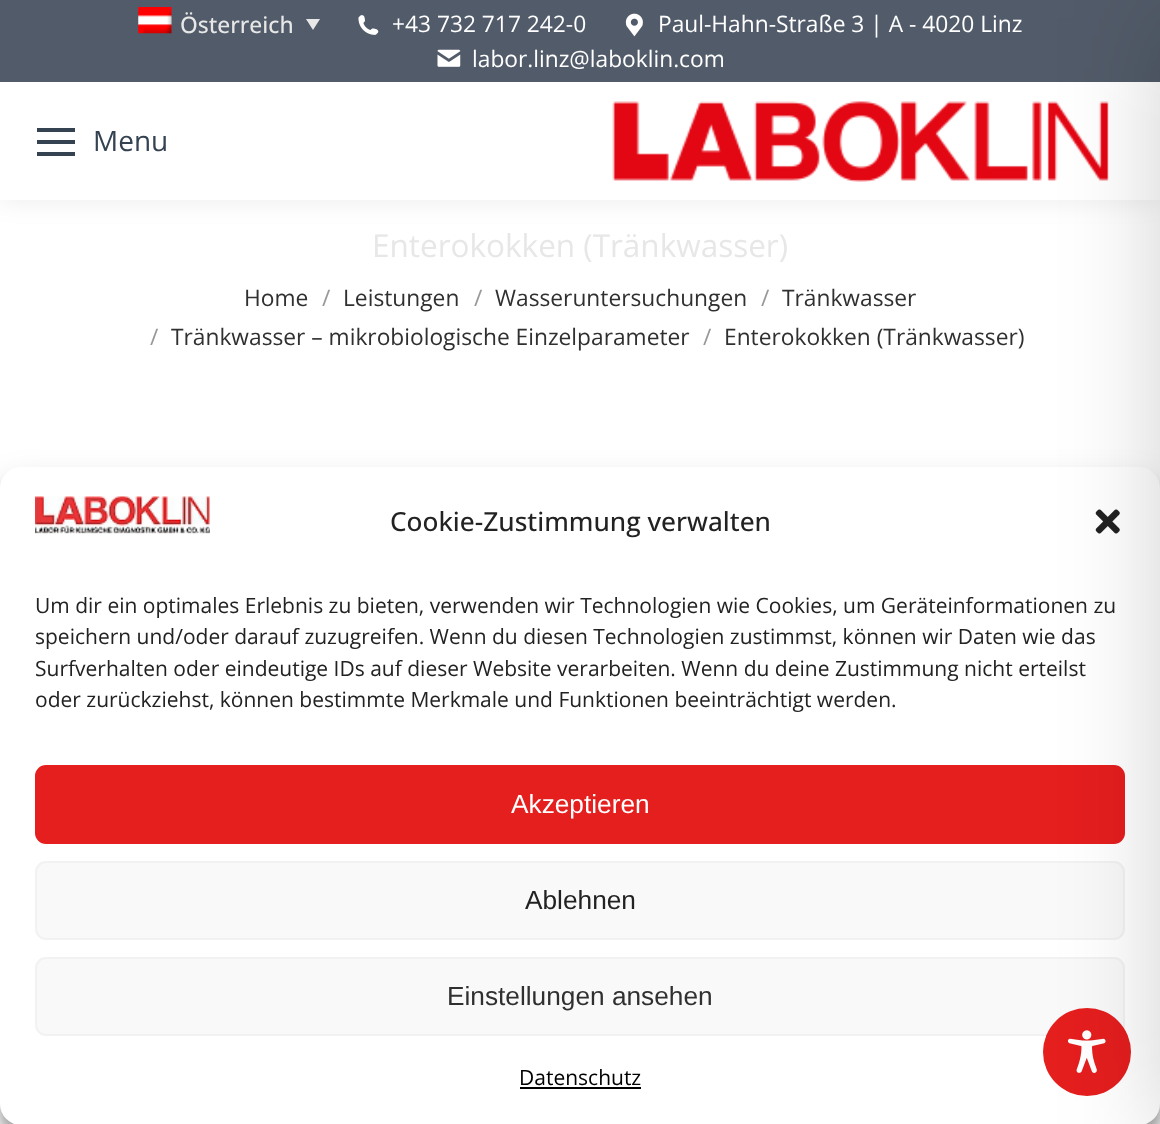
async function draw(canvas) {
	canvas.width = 1160;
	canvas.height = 1124;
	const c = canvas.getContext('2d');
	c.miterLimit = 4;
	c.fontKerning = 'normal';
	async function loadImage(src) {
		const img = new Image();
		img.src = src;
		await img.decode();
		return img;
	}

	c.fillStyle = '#fff';
	c.fillRect(0, 0, 1160, 1124);
	c.fillStyle = '#00000012';
	c.filter = 'blur(13px)';
	c.beginPath();
	c.rect(-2, -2, 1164, 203);
	c.fill();
	c.filter = 'none';
	c.fillStyle = '#fff';
	c.fillRect(0, 82, 1160, 118);
	c.fillStyle = '#525b69';
	c.fillRect(0, 0, 1160, 82);
	c.drawImage(await loadImage('img1.png'), 138, 7, 34, 27);
	c.font = '500 22.75px Open Sans';
	c.fillStyle = '#e7e7e7';
	c.fillText('Österreich', 180, 33);
	c.beginPath();
	c.moveTo(306, 19);
	c.lineTo(320, 19);
	c.lineTo(313, 30);
	c.closePath();
	c.fill();
	c.drawImage(await loadImage('img2.png'), 358, 15, 21, 20);
	c.font = '22.75px Open Sans';
	c.fillStyle = '#fff';
	c.fillText('+43 732 717 242-0', 392, 32);
	c.drawImage(await loadImage('img3.png'), 625, 13, 18, 24);
	c.fillText('Paul-Hahn-Straße 3 | A - 4020 Linz', 658, 32);
	c.drawImage(await loadImage('img4.png'), 437, 49, 24, 18);
	c.fillText('labor.linz@laboklin.com', 472, 67);
	for (const [x, y, w, h, color] of [
		[37, 128, 38, 4, '#344251'],
		[37, 140, 38, 4, '#344251'],
		[37, 152, 38, 4, '#344251'],
	]) {
		c.fillStyle = color;
		c.fillRect(x, y, w, h);
	}
	c.font = '28px Open Sans';
	c.fillText('Menu', 93, 151);
	c.drawImage(await loadImage('img5.png'), 612, 101, 497, 81);
	c.font = '31.5px Open Sans';
	c.fillStyle = '#e7e7e7';
	c.fillText('Enterokokken (Tränkwasser)', 372, 257);
	c.font = '22.75px Open Sans';
	c.fillStyle = '#303030';
	c.fillText('Home', 244, 306);
	c.fillStyle = '#989898';
	c.fillText('/', 322, 306);
	c.fillStyle = '#303030';
	c.fillText('Leistungen', 343, 306);
	c.fillStyle = '#989898';
	c.fillText('/', 474, 306);
	c.fillStyle = '#303030';
	c.fillText('Wasseruntersuchungen', 495, 306);
	c.fillStyle = '#989898';
	c.fillText('/', 761, 306);
	c.fillStyle = '#303030';
	c.fillText('Tränkwasser', 782, 306);
	c.fillStyle = '#989898';
	c.fillText('/', 150, 345);
	c.fillStyle = '#303030';
	c.fillText('Tränkwasser – mikrobiologische Einzelparameter', 171, 345);
	c.fillStyle = '#989898';
	c.fillText('/', 703, 345);
	c.fillStyle = '#303030';
	c.fillText('Enterokokken (Tränkwasser)', 724, 345);
	c.fillStyle = '#0000003b';
	c.filter = 'blur(5px)';
	c.beginPath();
	c.roundRect(0, 478, 1160, 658, 21);
	c.fill();
	c.filter = 'none';
	c.fillStyle = '#00000030';
	c.filter = 'blur(17.5px)';
	c.beginPath();
	c.roundRect(0, 485, 1160, 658, 21);
	c.fill();
	c.filter = 'none';
	c.fillStyle = '#fff';
	c.beginPath();
	c.roundRect(0, 467, 1160, 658, 21);
	c.fill();
	c.drawImage(await loadImage('img7.png'), 1095, 509, 25, 25);
	c.fillStyle = '#e51e1e';
	c.beginPath();
	c.roundRect(36, 766, 1088, 77, 10);
	c.fill();
	c.strokeStyle = '#e51e1e';
	c.lineWidth = 2;
	c.stroke();
	c.fillStyle = '#f9f9f9';
	c.beginPath();
	c.roundRect(36, 862, 1088, 77, 10);
	c.fill();
	c.strokeStyle = '#f2f2f2';
	c.stroke();
	c.beginPath();
	c.roundRect(36, 958, 1088, 77, 10);
	c.fill();
	c.stroke();
	c.fillStyle = '#e51e1e';
	c.beginPath();
	c.arc(1087, 1052, 44, 0, 2 * Math.PI);
	c.fill();
	c.drawImage(await loadImage('img8.png'), 1067, 1030, 39, 43);
	c.fillStyle = '#00000033';
	c.filter = 'blur(52.5px)';
	c.beginPath();
	c.rect(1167, 18, 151, 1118);
	c.fill();
	c.filter = 'none';
	c.drawImage(await loadImage('img6.png'), 35, 496, 175, 38);
	c.font = '500 26.25px Open Sans';
	c.fillStyle = '#222';
	c.fillText('Cookie-Zustimmung verwalten', 390, 531);
	c.font = '21px Open Sans';
	for (const [text, x, y] of [
		['Um dir ein optimales Erlebnis zu bieten, verwenden wir Technologien wie Cookies, um Geräteinformationen zu', 35, 613],
		['speichern und/oder darauf zuzugreifen. Wenn du diesen Technologien zustimmst, können wir Daten wie das', 35, 644],
		['Surfverhalten oder eindeutige IDs auf dieser Website verarbeiten. Wenn du deine Zustimmung nicht erteilst', 35, 676],
		['oder zurückziehst, können bestimmte Merkmale und Funktionen beeinträchtigt werden.', 35, 707],
	]) {
		c.fillText(text, x, y);
	}
	c.font = '26.25px Liberation Sans';
	c.fillStyle = '#fff';
	c.fillText('Akzeptieren', 511, 813);
	c.fillStyle = '#222';
	c.fillText('Ablehnen', 525, 909);
	c.fillStyle = '#303030';
	c.fillText('Einstellungen ansehen', 447, 1005);
	c.font = '21px Open Sans';
	c.fillStyle = '#000';
	c.fillText('Datenschutz', 519, 1085);
	c.fillRect(520, 1087, 121, 2);
}

draw(document.querySelector('canvas'));
